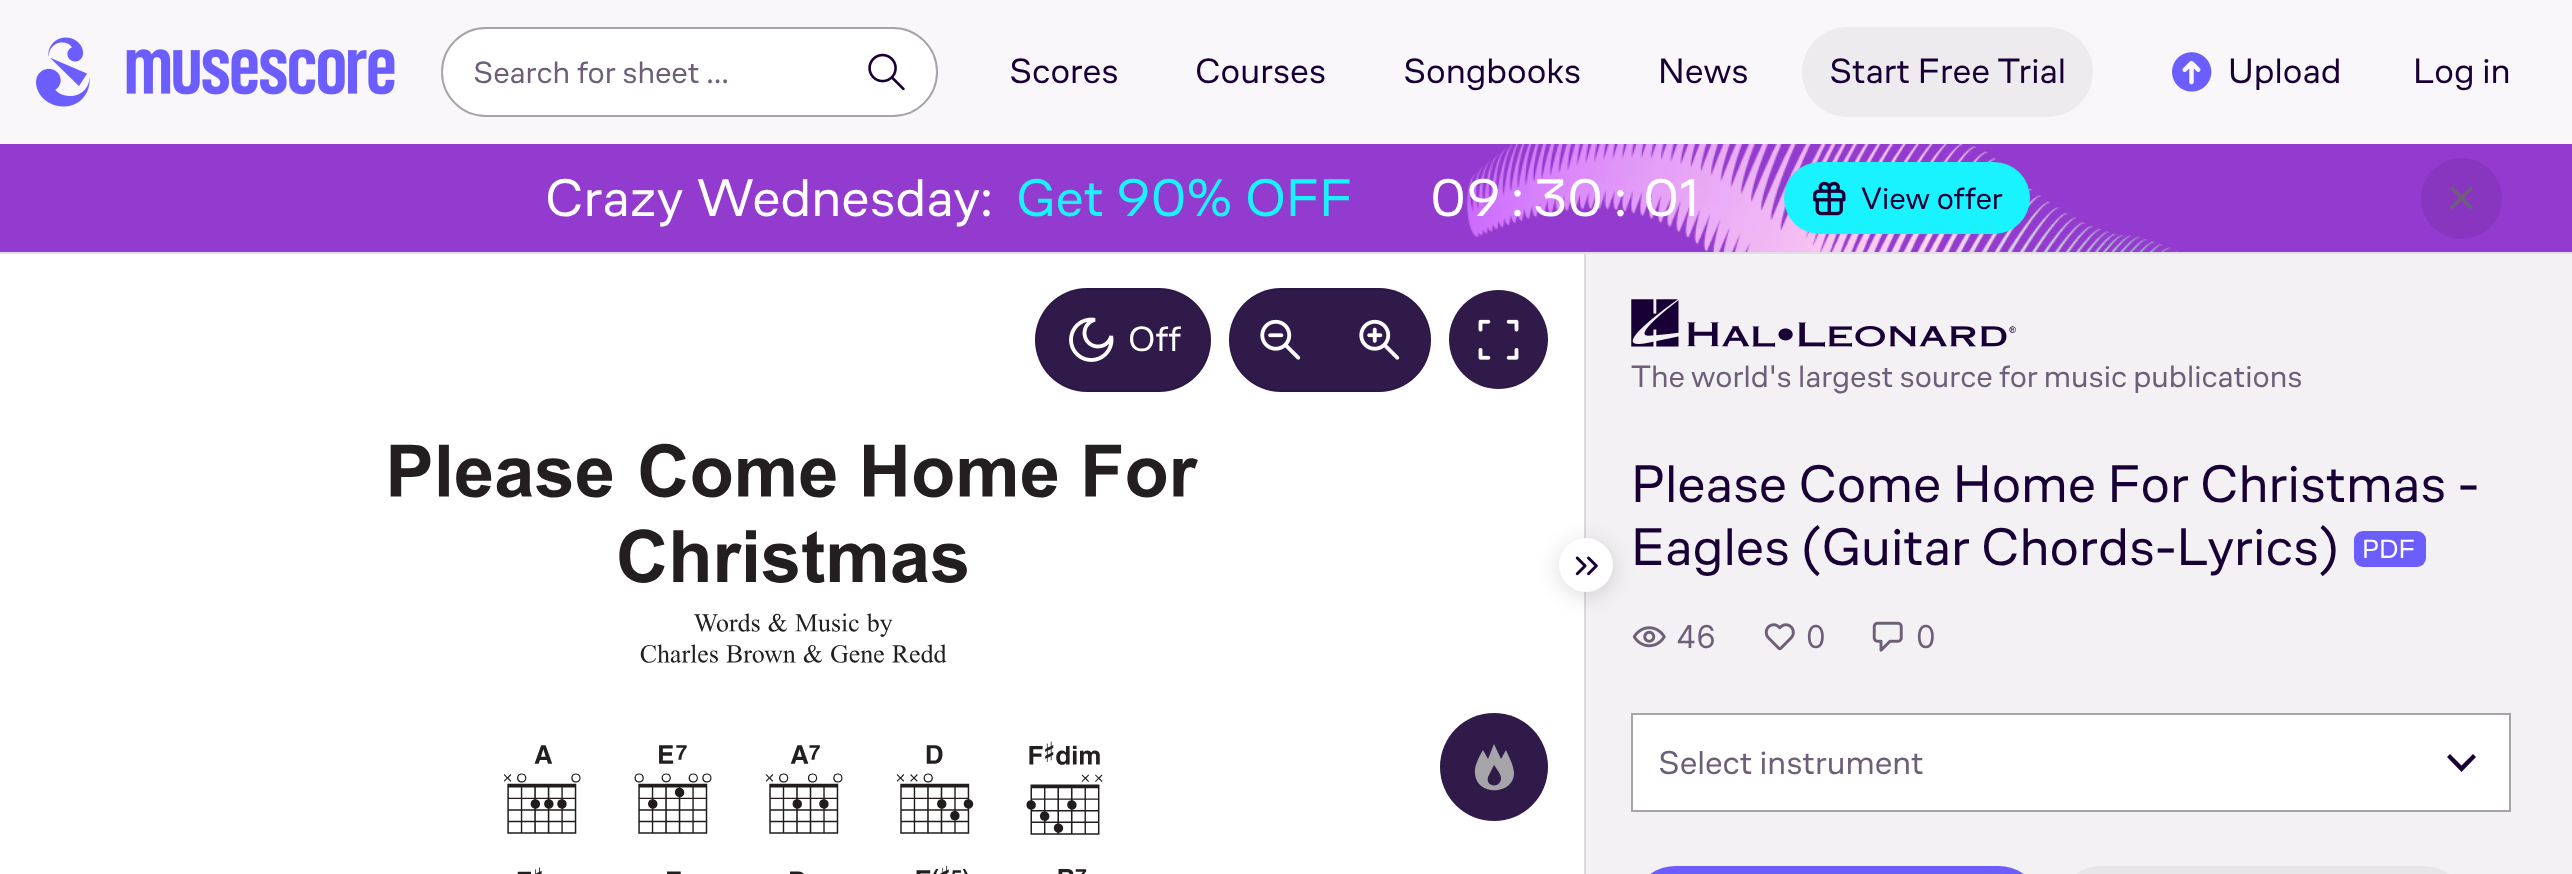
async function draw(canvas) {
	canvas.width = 2572;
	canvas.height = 874;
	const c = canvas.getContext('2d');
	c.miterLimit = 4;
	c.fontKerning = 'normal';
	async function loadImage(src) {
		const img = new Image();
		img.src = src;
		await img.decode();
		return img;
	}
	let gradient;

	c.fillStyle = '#f9f7fa';
	c.fillRect(0, 0, 2572, 874);
	c.fillStyle = '#e2dee6';
	c.fillRect(0, 252, 2572, 2);
	c.drawImage(await loadImage('img1.png'), 36, 37, 359, 70);
	c.fillStyle = '#fff';
	c.beginPath();
	c.roundRect(442, 28, 495, 88, 44);
	c.fill();
	c.strokeStyle = '#a7a4a9';
	c.lineWidth = 2;
	c.stroke();
	c.font = '31.5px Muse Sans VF';
	c.fillStyle = '#6e5f79';
	c.fillText('Search for sheet …', 473, 83);
	c.drawImage(await loadImage('img2.png'), 868, 53, 37, 38);
	c.font = '36px Muse Sans VF';
	c.fillStyle = '#180036';
	for (const [text, x, y] of [
		['Scores', 1009, 83],
		['Courses', 1195, 83],
		['Songbooks', 1403, 83],
		['News', 1658, 83],
	]) {
		c.fillText(text, x, y);
	}
	c.fillStyle = '#edebee';
	c.beginPath();
	c.roundRect(1802, 27, 291, 90, 45);
	c.fill();
	c.fillStyle = '#180036';
	c.fillText('Start Free Trial', 1829, 83);
	c.drawImage(await loadImage('img3.png'), 2172, 52, 40, 40);
	c.fillText('Upload', 2228, 83);
	c.fillText('Log in', 2413, 83);
	c.fillStyle = '#943bcf';
	c.fillRect(0, 144, 2572, 108);
	c.font = '54px Muse Sans VF';
	c.fillStyle = '#fff';
	c.fillText('Crazy', 545, 216);
	c.fillText('Wednesday:', 697, 216);
	c.fillStyle = '#19f3ff';
	for (const [text, x, y] of [
		['Get', 1016, 216],
		['90%', 1116, 216],
		['OFF', 1245, 216],
	]) {
		c.fillText(text, x, y);
	}
	c.drawImage(await loadImage('img4.png'), 1466, 144, 712, 108);
	c.fillStyle = '#fff';
	for (const [text, x, y] of [
		['09', 1430, 216],
		[':', 1511, 216],
		['30', 1533, 216],
		[':', 1614, 216],
		['01', 1643, 216],
	]) {
		c.fillText(text, x, y);
	}
	c.fillStyle = '#19f3ff';
	c.beginPath();
	c.roundRect(1784, 162, 246, 72, 36);
	c.fill();
	c.drawImage(await loadImage('img5.png'), 1813, 181, 33, 35);
	c.font = '31.5px Muse Sans VF';
	c.fillStyle = '#180036';
	c.fillText('View offer', 1861, 209);
	c.fillStyle = '#8835c0';
	c.beginPath();
	c.arc(2461.5, 198.5, 40.5, 0, 2 * Math.PI);
	c.fill();
	c.drawImage(await loadImage('img6.png'), 2450, 186, 23, 24);
	c.fillStyle = '#fff';
	c.fillRect(0, 254, 1584, 620);
	c.drawImage(await loadImage('img7.png'), 390, 443, 808, 431);
	c.fillStyle = '#2f1a4a';
	c.beginPath();
	c.roundRect(1035, 288, 176, 104, 52);
	c.fill();
	c.beginPath();
	c.roundRect(1036, 289, 174, 102, 51);
	c.strokeStyle = '#1800361a';
	c.stroke();
	c.drawImage(await loadImage('img8.png'), 1069, 317, 45, 45);
	c.font = '36px Muse Sans VF';
	c.fillStyle = '#fff';
	c.fillText('Off', 1128, 351);
	c.fillStyle = '#2f1a4a';
	c.beginPath();
	c.roundRect(1229, 288, 202, 104, 52);
	c.fill();
	c.beginPath();
	c.roundRect(1230, 289, 200, 102, 51);
	c.stroke();
	c.drawImage(await loadImage('img9.png'), 1260, 319, 41, 41);
	c.drawImage(await loadImage('img10.png'), 1359, 319, 41, 41);
	c.beginPath();
	c.arc(1498.5, 339.5, 49.5, 0, 2 * Math.PI);
	c.fill();
	c.drawImage(await loadImage('img11.png'), 1478, 319, 41, 41);
	c.beginPath();
	c.arc(1494, 767, 54, 0, 2 * Math.PI);
	c.fill();
	gradient = c.createLinearGradient(1475, 791, 1475, 744);
	gradient.addColorStop(0, '#19f3ff');
	gradient.addColorStop(0, '#a7a4a9');
	c.fillStyle = gradient;
	c.beginPath();
	c.moveTo(1494, 744);
	c.lineTo(1488, 759);
	c.lineTo(1483, 750);
	c.bezierCurveTo(1479, 757, 1474, 766, 1475, 774);
	c.bezierCurveTo(1477, 797, 1515, 795, 1514, 772);
	c.bezierCurveTo(1513, 764, 1509, 757, 1506, 750);
	c.lineTo(1501, 759);
	c.closePath();
	c.moveTo(1494, 765);
	c.bezierCurveTo(1496, 768, 1501, 774, 1501, 778);
	c.bezierCurveTo(1501, 789, 1485, 787, 1488, 777);
	c.closePath();
	c.fill('evenodd');
	c.fillStyle = '#f3f1f4';
	c.fillRect(1586, 254, 986, 620);
	c.fillStyle = '#ddd9e1';
	c.fillRect(1584, 254, 2, 620);
	c.drawImage(await loadImage('img14.png'), 1632, 626, 34, 22);
	c.fillStyle = '#00000024';
	c.filter = 'blur(11px)';
	c.beginPath();
	c.roundRect(1559, 542, 54, 54, 27);
	c.fill();
	c.filter = 'none';
	c.fillStyle = '#fff';
	c.beginPath();
	c.arc(1586, 565, 27, 0, 2 * Math.PI);
	c.fill();
	c.drawImage(await loadImage('img12.png'), 1575, 556, 23, 20);
	c.drawImage(await loadImage('img13.png'), 1631, 299, 385, 49);
	c.wordSpacing = '-0.5px';
	c.font = '31.5px Muse Sans VF';
	c.fillStyle = '#6e5f79';
	c.fillText('The world\'s largest source for music publications', 1631, 387);
	c.wordSpacing = '0px';
	c.font = '54px Muse Sans VF';
	c.fillStyle = '#180036';
	c.fillText('Please Come Home For Christmas -', 1631, 502);
	c.fillText('Eagles (Guitar Chords-Lyrics)', 1631, 565);
	c.fillStyle = '#6b5dfe';
	c.beginPath();
	c.roundRect(2354, 531, 72, 36, 9);
	c.fill();
	c.font = '27px Muse Sans VF';
	c.fillStyle = '#fff';
	c.fillText('PDF', 2362, 558);
	c.font = '31.5px Inter';
	c.fillStyle = '#6e5f79';
	c.fillText('46', 1676, 648);
	c.drawImage(await loadImage('img15.png'), 1764, 623, 31, 28);
	c.fillText('0', 1806, 648);
	c.drawImage(await loadImage('img16.png'), 1872, 621, 31, 31);
	c.fillText('0', 1916, 648);
	c.fillStyle = '#fff';
	c.beginPath();
	c.rect(1632, 714, 878, 97);
	c.fill();
	c.strokeStyle = '#a7a4a9';
	c.stroke();
	c.font = '33.75px Muse Sans VF';
	c.fillStyle = '#6e5f79';
	c.fillText('Select instrument', 1658, 774);
	c.fillStyle = '#180036';
	c.beginPath();
	c.moveTo(2476, 757);
	c.lineTo(2461.5, 772);
	c.lineTo(2447, 757);
	c.lineTo(2450, 754);
	c.lineTo(2461.5, 765.5);
	c.lineTo(2473, 754);
	c.closePath();
	c.fill('evenodd');
	c.fillStyle = '#6b5dfe';
	c.beginPath();
	c.moveTo(1676, 866);
	c.lineTo(1998, 866);
	c.bezierCurveTo(2023, 866, 2043, 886, 2043, 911);
	c.lineTo(2043, 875);
	c.lineTo(1631, 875);
	c.lineTo(1631, 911);
	c.bezierCurveTo(1631, 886, 1651, 866, 1676, 866);
	c.closePath();
	c.fill();
	c.fillStyle = '#e7e5e8';
	c.beginPath();
	c.moveTo(2102, 866);
	c.lineTo(2423, 866);
	c.bezierCurveTo(2448, 866, 2468, 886, 2468, 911);
	c.lineTo(2468, 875);
	c.lineTo(2057, 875);
	c.lineTo(2057, 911);
	c.bezierCurveTo(2057, 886, 2077, 866, 2102, 866);
	c.closePath();
	c.fill();
}

draw(document.querySelector('canvas'));
